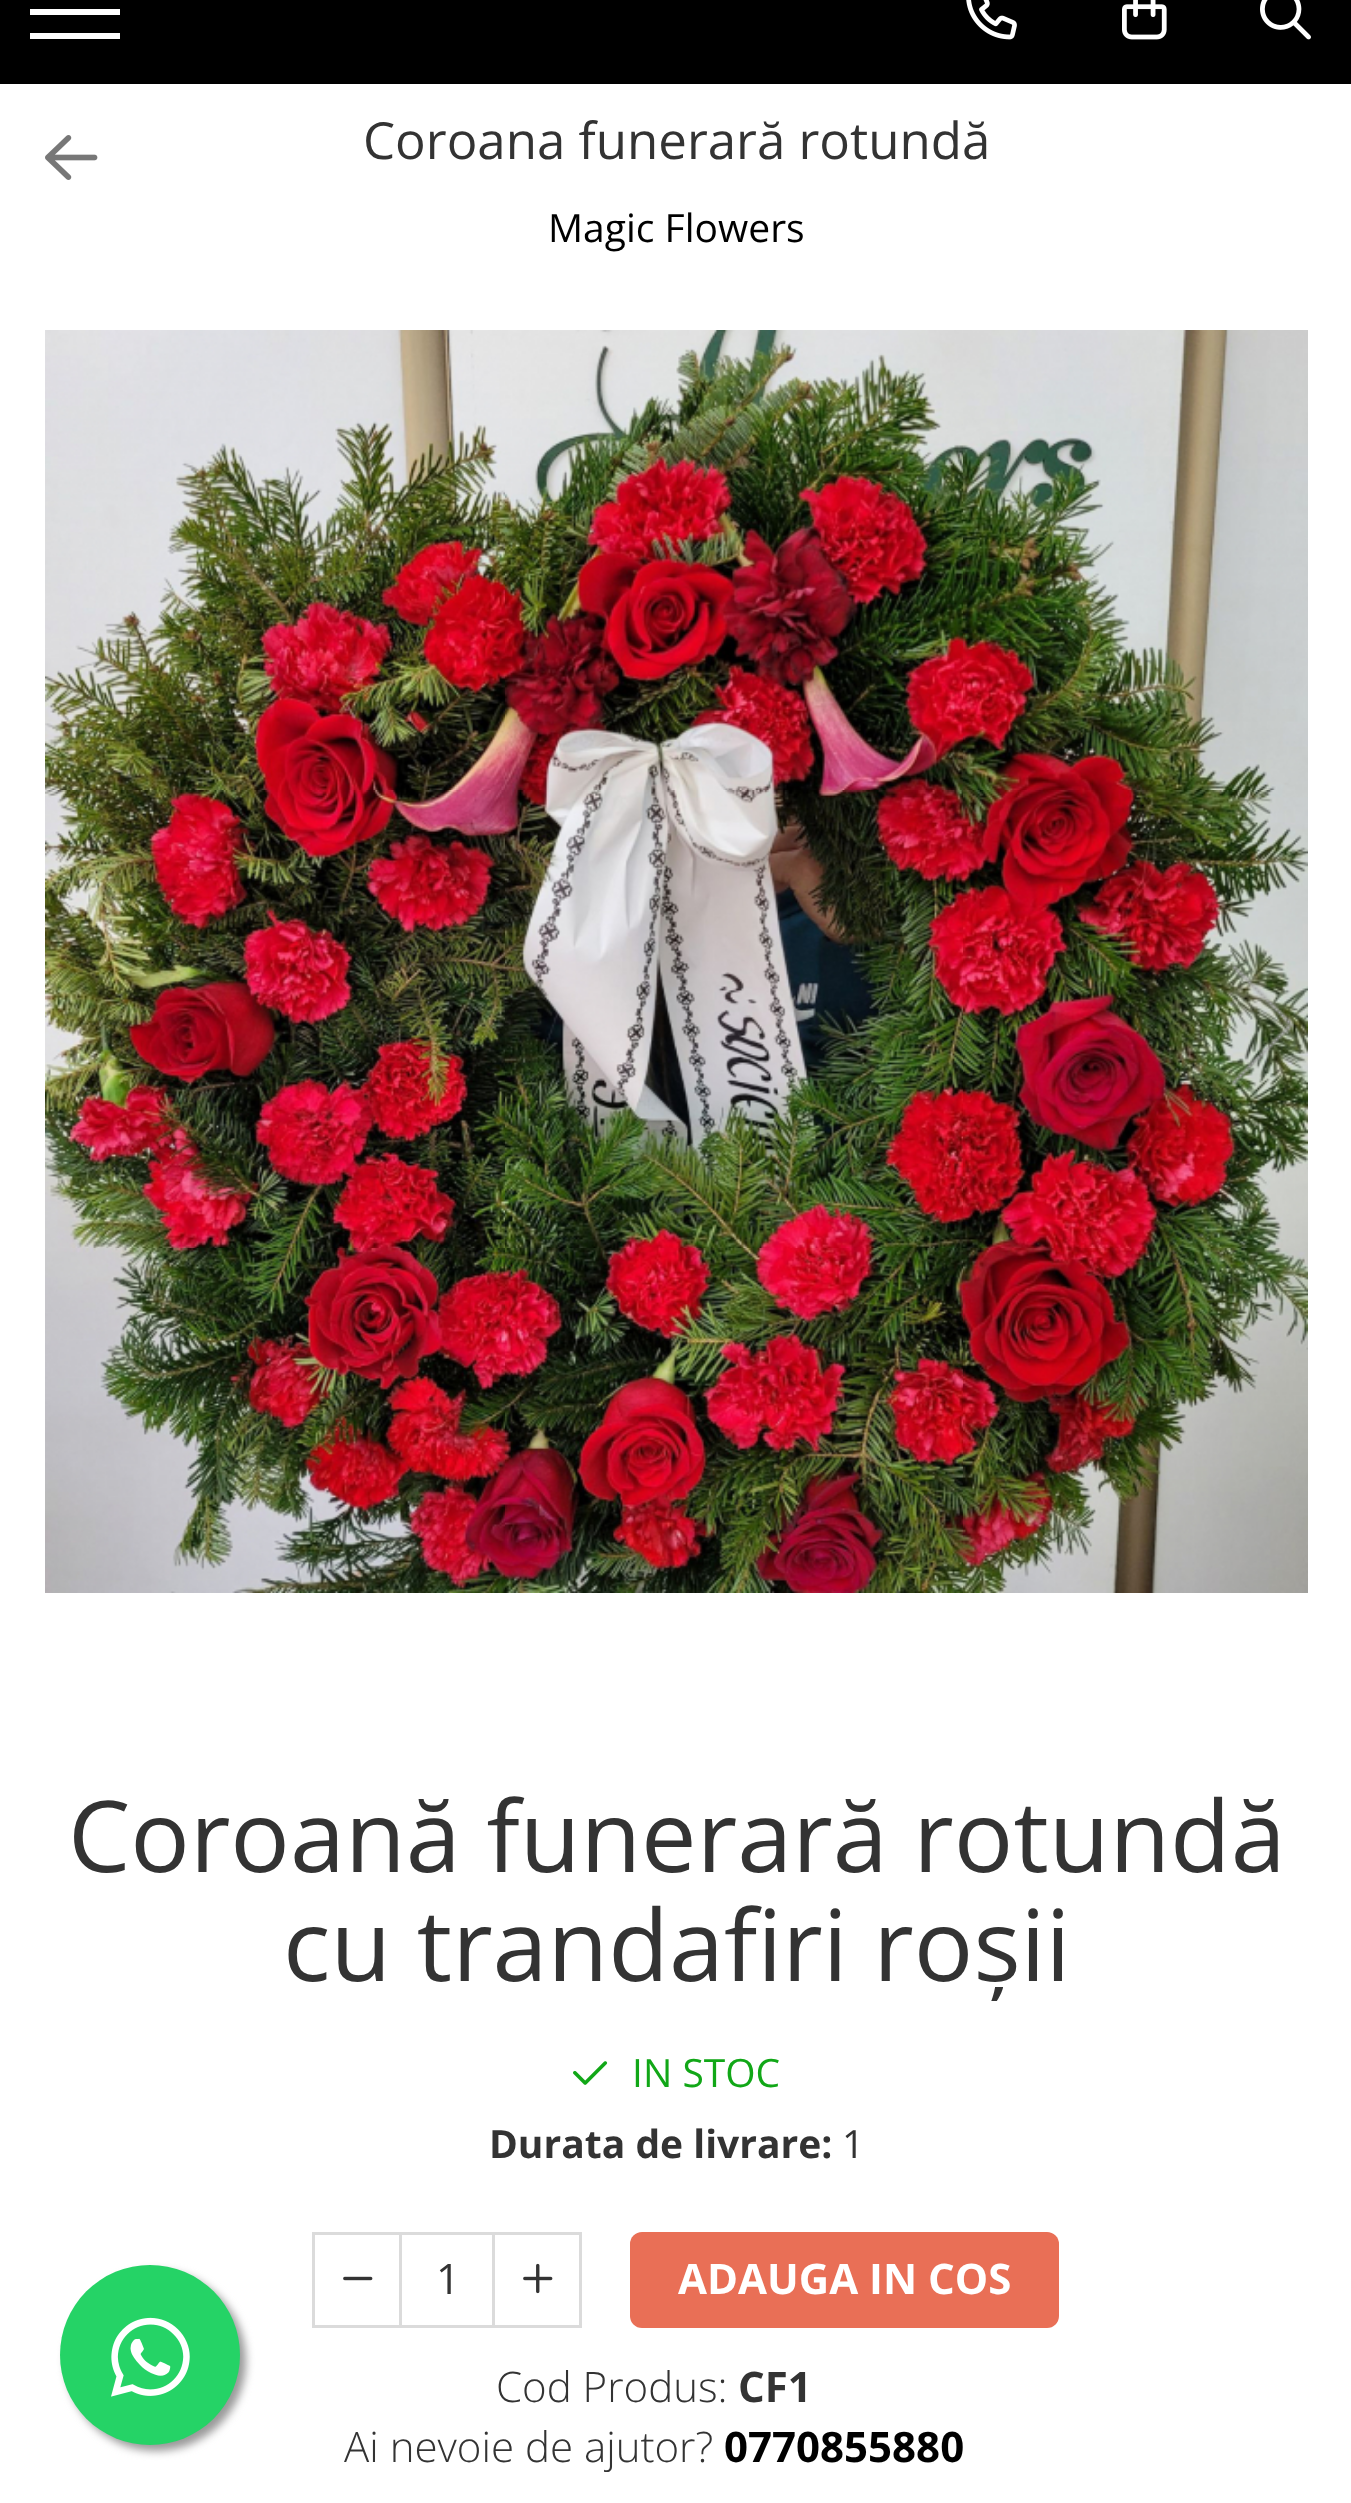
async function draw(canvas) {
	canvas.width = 1351;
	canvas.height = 2503;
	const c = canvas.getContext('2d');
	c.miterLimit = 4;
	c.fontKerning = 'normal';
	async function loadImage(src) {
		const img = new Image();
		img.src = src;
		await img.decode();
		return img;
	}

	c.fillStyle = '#fff';
	c.fillRect(0, 0, 1351, 2503);
	for (const [x, y, w, h, color] of [
		[0, 0, 1351, 84, '#000'],
		[30, 9, 90, 6, '#fff'],
		[30, 33, 90, 6, '#fff'],
	]) {
		c.fillStyle = color;
		c.fillRect(x, y, w, h);
	}
	c.drawImage(await loadImage('img1.png'), 966, 0, 51, 40);
	c.drawImage(await loadImage('img2.png'), 1122, 0, 45, 40);
	c.drawImage(await loadImage('img3.png'), 1260, 0, 51, 40);
	c.drawImage(await loadImage('img4.png'), 45, 135, 53, 45);
	c.font = '51px Open Sans';
	c.fillStyle = '#333';
	c.fillText('Coroana funerară rotundă', 363, 159);
	c.font = '39px Open Sans';
	c.fillStyle = '#000';
	c.fillText('Magic Flowers', 548, 242);
	c.drawImage(await loadImage('img5.png'), 45, 330, 1263, 1263);
	c.drawImage(await loadImage('img6.png'), 1232, 963, 62, 123);
	c.font = '99px Open Sans';
	c.fillStyle = '#333';
	c.fillText('Coroană funerară rotundă', 68, 1872);
	c.save();
	c.beginPath();
	c.rect(45, 1782, 1263, 219);
	c.clip();
	c.fillText('cu trandafiri roșii', 283, 1981);
	c.restore();
	c.drawImage(await loadImage('img7.png'), 573, 2061, 35, 24);
	c.font = '39px Open Sans';
	c.fillStyle = '#11a717';
	c.fillText('IN STOC', 632, 2087);
	c.font = 'bold 39px Open Sans';
	c.fillStyle = '#333';
	c.fillText('Durata de livrare:', 489, 2158);
	c.font = '39px Open Sans';
	c.fillText('1', 842, 2158);
	c.strokeStyle = '#dbdbdb';
	c.lineWidth = 3;
	c.strokeRect(313.5, 2233.5, 87, 93);
	c.drawImage(await loadImage('img8.png'), 343, 2276, 30, 5);
	c.fillStyle = '#dbdbdb';
	c.fillRect(402, 2232, 90, 3);
	c.fillRect(402, 2325, 90, 3);
	c.font = '42px Open Sans';
	c.fillStyle = '#333';
	c.fillText('1', 436, 2294);
	c.strokeRect(493.5, 2233.5, 87, 93);
	c.drawImage(await loadImage('img9.png'), 523, 2263, 30, 31);
	c.fillStyle = '#e96f56';
	c.beginPath();
	c.roundRect(630, 2232, 429, 96, 12);
	c.fill();
	c.font = 'bold 42px Open Sans';
	c.fillStyle = '#fff';
	c.fillText('ADAUGA IN COS', 678, 2294);
	c.font = '300 42px Open Sans';
	c.fillStyle = '#333';
	c.fillText('Cod Produs:', 496, 2402);
	c.font = 'bold 42px Open Sans';
	c.fillText('CF1', 738, 2402);
	c.font = '300 42px Open Sans';
	c.fillText('Ai nevoie de ajutor?', 344, 2462);
	c.font = 'bold 42px Open Sans';
	c.fillStyle = '#000';
	c.fillText('0770855880', 724, 2462);
	c.fillStyle = '#999';
	c.filter = 'blur(4.5px)';
	c.beginPath();
	c.roundRect(66, 2271, 180, 180, 90);
	c.fill();
	c.filter = 'none';
	c.fillStyle = '#25d366';
	c.beginPath();
	c.arc(150, 2355, 90, 0, 2 * Math.PI);
	c.fill();
	c.drawImage(await loadImage('img10.png'), 111, 2317, 79, 80);
}

draw(document.querySelector('canvas'));
